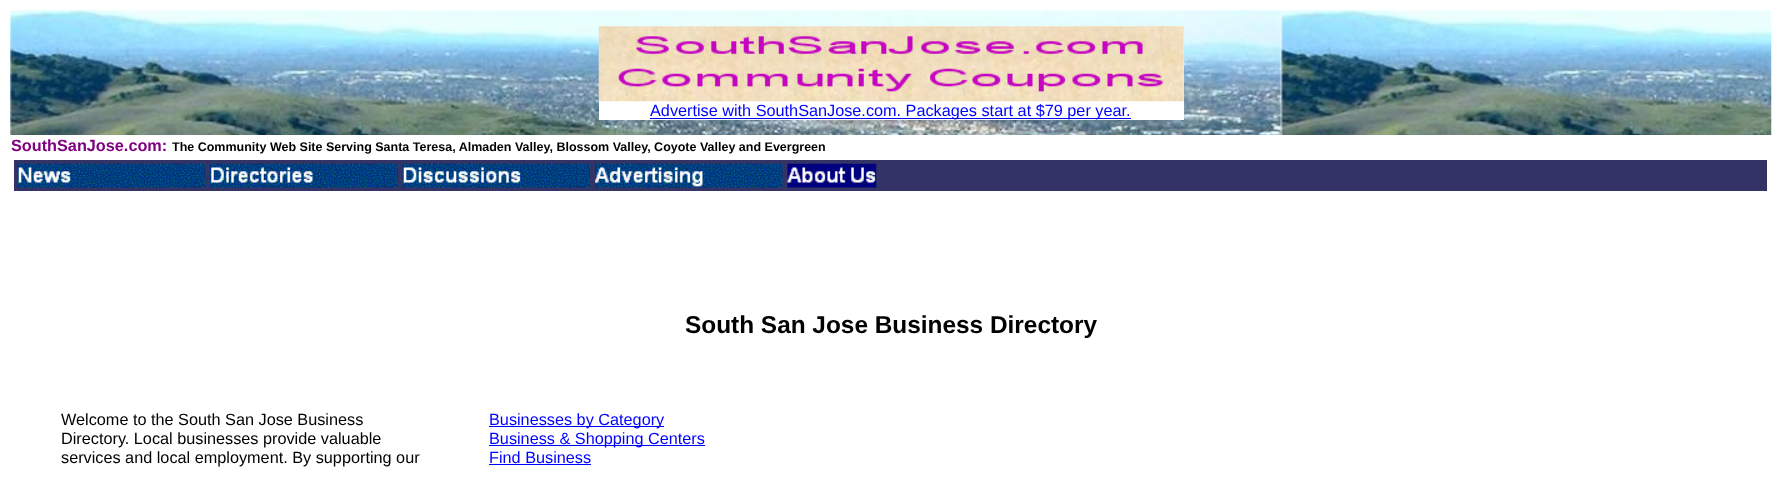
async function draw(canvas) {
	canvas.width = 1781;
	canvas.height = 477;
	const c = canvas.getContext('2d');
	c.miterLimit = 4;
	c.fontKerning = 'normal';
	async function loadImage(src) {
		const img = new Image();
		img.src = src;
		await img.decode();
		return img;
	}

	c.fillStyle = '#fff';
	c.fillRect(0, 0, 1781, 477);
	c.drawImage(await loadImage('img1.png'), 10, 10, 1762, 125);
	c.fillRect(599, 26, 585, 94);
	c.drawImage(await loadImage('img2.png'), 598, 26, 586, 76);
	c.fillStyle = '#00f';
	c.fillRect(650, 118, 481, 1);
	c.font = '16.25px Liberation Sans';
	c.fillText('Advertise with SouthSanJose.com. Packages start at $79 per year.', 650, 116);
	c.font = 'bold 16.25px Liberation Sans';
	c.fillStyle = '#800080';
	c.fillText('SouthSanJose.com:', 11, 151);
	c.font = 'bold 12.5px Liberation Sans';
	c.fillStyle = '#000';
	c.fillText('The Community Web Site Serving Santa Teresa, Almaden Valley, Blossom Valley, Coyote Valley and Evergreen', 172, 151);
	c.fillStyle = '#336';
	c.fillRect(14, 160, 1753, 31);
	c.drawImage(await loadImage('img3.png'), 17, 163, 188, 25);
	c.drawImage(await loadImage('img4.png'), 210, 163, 188, 25);
	c.drawImage(await loadImage('img5.png'), 402, 163, 188, 25);
	c.drawImage(await loadImage('img6.png'), 595, 163, 188, 25);
	c.drawImage(await loadImage('img7.png'), 787, 163, 90, 25);
	c.font = 'bold 24.4px Liberation Sans';
	c.fillStyle = '#000';
	c.fillText('South San Jose Business Directory', 685, 333);
	c.font = '16.25px Liberation Sans';
	for (const [text, x, y] of [
		['Welcome to the South San Jose Business', 61, 425],
		['Directory. Local businesses provide valuable', 61, 444],
		['services and local employment. By supporting our', 61, 463],
	]) {
		c.fillText(text, x, y);
	}
	c.fillStyle = '#00f';
	c.fillRect(489, 426, 175, 1);
	c.fillText('Businesses by Category', 489, 425);
	c.fillRect(489, 445, 216, 1);
	c.fillText('Business & Shopping Centers', 489, 444);
	c.fillText('Find Business', 489, 463);
	c.fillRect(489, 464, 102, 1);
}

draw(document.querySelector('canvas'));
